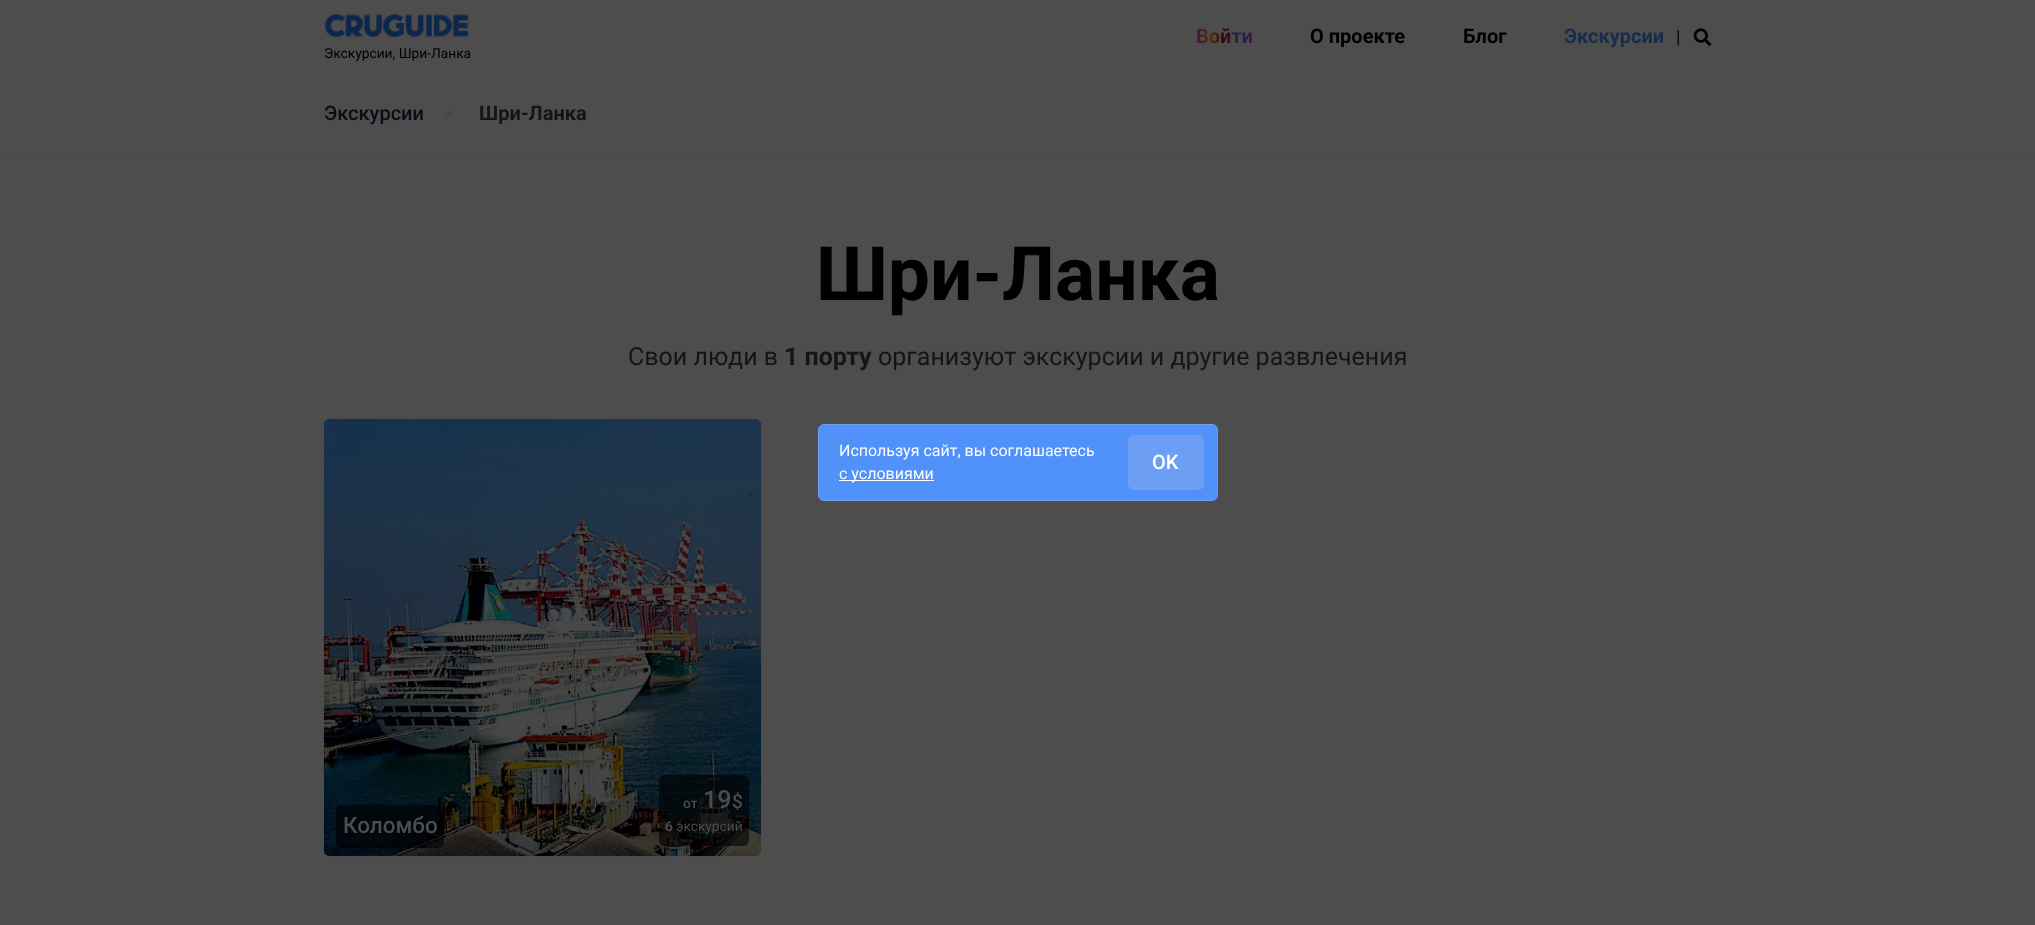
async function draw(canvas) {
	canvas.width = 2035;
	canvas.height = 925;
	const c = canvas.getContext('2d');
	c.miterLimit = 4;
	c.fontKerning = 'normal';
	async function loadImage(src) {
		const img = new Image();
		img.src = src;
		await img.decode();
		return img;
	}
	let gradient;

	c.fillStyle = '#4d4d4d';
	c.fillRect(0, 0, 2035, 925);
	c.font = 'bold 20px Roboto';
	gradient = c.createLinearGradient(1196, 37, 1253, 37);
	gradient.addColorStop(0, '#460f4d');
	gradient.addColorStop(0.25, '#4d3600');
	gradient.addColorStop(0.5, '#3d000f');
	gradient.addColorStop(0.75, '#182c4b');
	gradient.addColorStop(1, '#460f4d');
	c.fillStyle = gradient;
	c.fillText('Войти', 1196, 43);
	c.fillStyle = '#000';
	c.fillText('О проекте', 1310, 43);
	c.fillText('Блог', 1463, 43);
	c.fillStyle = '#182c4b';
	c.fillText('Экскурсии', 1564, 43);
	c.font = '18px Roboto';
	c.fillStyle = '#000';
	c.fillText('|', 1676, 43);
	c.drawImage(await loadImage('img1.png'), 1693, 28, 19, 18);
	c.drawImage(await loadImage('img2.png'), 324, 13, 145, 25);
	c.font = '13.75px Roboto';
	c.fillText('Экскурсии, Шри-Ланка', 324, 58);
	c.fillStyle = '#464749';
	c.fillRect(0, 153, 2035, 1);
	c.font = '500 20px Roboto';
	c.fillStyle = '#080d16';
	c.fillText('Экскурсии', 324, 120);
	c.fillStyle = '#464749';
	c.fillRect(446, 111, 5, 5);
	c.font = 'bold 20px Roboto';
	c.fillStyle = '#151515';
	c.fillText('Шри-Ланка', 479, 120);
	c.font = 'bold 75px Roboto';
	c.fillStyle = '#000';
	c.fillText('Шри-Ланка', 816, 300);
	c.font = '25px Roboto';
	c.fillStyle = '#151515';
	c.fillText('Свои люди в', 628, 365);
	c.font = 'bold 25px Roboto';
	c.fillText('1 порту', 784, 365);
	c.font = '25px Roboto';
	c.fillText('организуют экскурсии и другие развлечения', 878, 365);
	c.drawImage(await loadImage('img3.png'), 323, 418, 439, 439);
	gradient = c.createLinearGradient(543, 419, 543, 856);
	gradient.addColorStop(0, '#00000000');
	gradient.addColorStop(1, '#0000001a');
	c.fillStyle = gradient;
	c.beginPath();
	c.roundRect(324, 419, 437, 437, 6);
	c.fill();
	c.fillStyle = '#00000099';
	c.beginPath();
	c.roundRect(336, 805, 108, 43, 6);
	c.fill();
	c.font = '500 22.5px Roboto';
	c.fillStyle = '#4d4d4d';
	c.fillText('Коломбо', 343, 833);
	c.fillStyle = '#00000099';
	c.beginPath();
	c.roundRect(659, 775, 90, 71, 6);
	c.fill();
	c.font = '500 13.75px Roboto';
	c.fillStyle = '#4d4d4d';
	c.fillText('от', 683, 808);
	c.font = '500 25px Roboto';
	c.fillText('19', 703, 808);
	c.font = '500 19px Roboto';
	c.fillText('$', 732, 808);
	c.font = 'bold 13.75px Roboto';
	c.fillText('6', 665, 831);
	c.font = '13.75px Roboto';
	c.fillText('экскурсий', 676, 831);
	c.fillStyle = '#5191fa';
	c.beginPath();
	c.roundRect(818.5, 424.5, 399, 76, 5.5);
	c.fill();
	c.strokeStyle = '#6c9ff3';
	c.stroke();
	c.font = '16px Roboto';
	c.fillStyle = '#fff';
	c.fillText('Используя сайт, вы соглашаетесь', 839, 456);
	c.fillRect(839, 480, 95, 1);
	c.fillText('с условиями', 839, 479);
	c.fillStyle = '#6c9ff3';
	c.beginPath();
	c.roundRect(1128, 435, 76, 55, 6);
	c.fill();
	c.font = '500 20px Roboto';
	c.fillStyle = '#fff';
	c.fillText('OK', 1152, 469);
}

draw(document.querySelector('canvas'));
